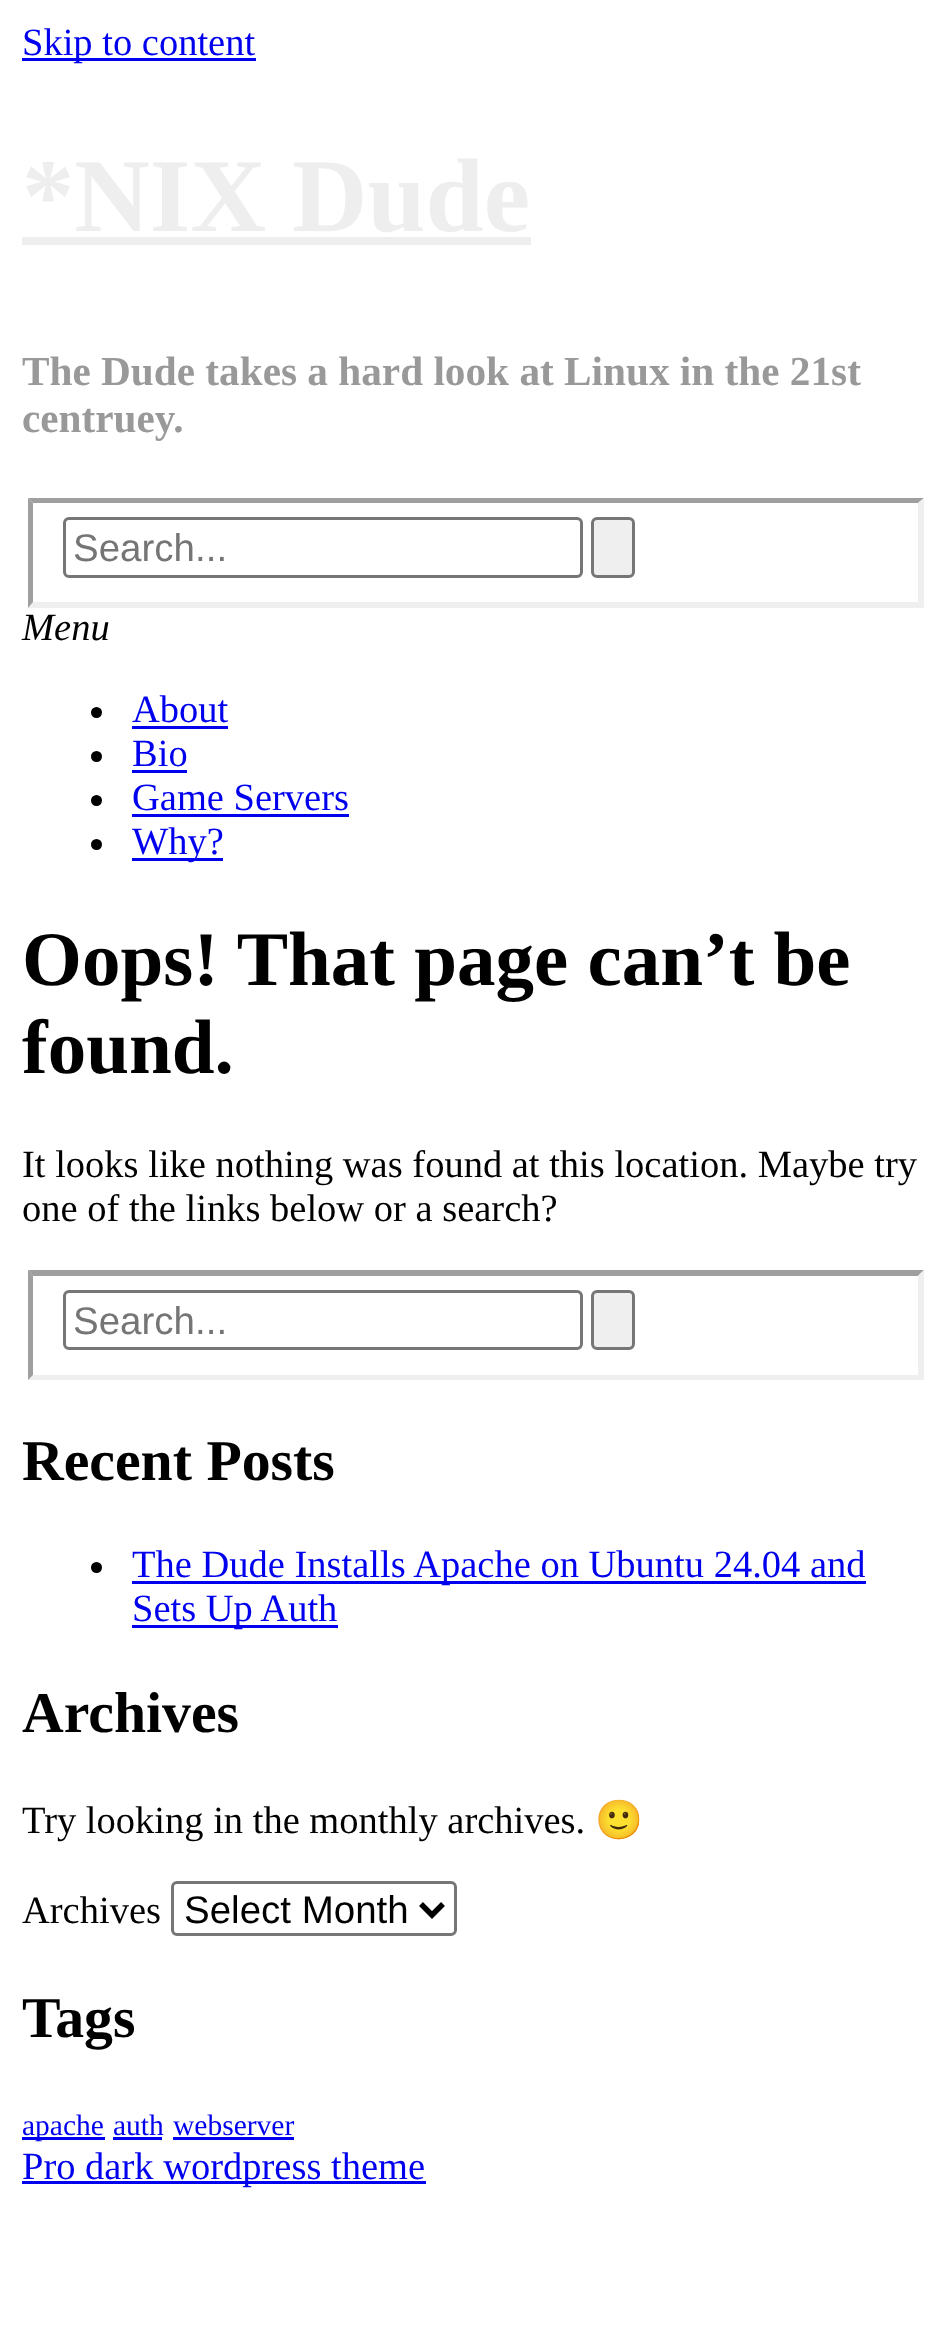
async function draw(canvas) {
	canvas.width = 949;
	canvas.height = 2350;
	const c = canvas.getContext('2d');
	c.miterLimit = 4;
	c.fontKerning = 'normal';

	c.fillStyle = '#fff';
	c.fillRect(0, 0, 949, 2350);
	c.fillStyle = '#00e';
	c.fillRect(22, 58, 234, 3);
	c.font = '38.5px Liberation Serif';
	c.fillText('Skip to content', 22, 55);
	c.font = 'bold 104.5px Liberation Serif';
	c.fillStyle = '#eee';
	c.fillText('*NIX Dude', 22, 231);
	c.fillRect(22, 237, 509, 8);
	c.font = 'bold 41.25px Liberation Serif';
	c.fillStyle = '#999';
	c.fillText('The Dude takes a hard look at Linux in the 21st', 22, 385);
	c.fillText('centruey.', 22, 432);
	c.fillStyle = '#9f9f9f';
	c.beginPath();
	c.moveTo(28, 498);
	c.lineTo(924, 498);
	c.lineTo(918, 503);
	c.lineTo(33, 503);
	c.closePath();
	c.fill();
	c.fillStyle = '#efefef';
	c.beginPath();
	c.moveTo(924, 498);
	c.lineTo(924, 608);
	c.lineTo(918, 602);
	c.lineTo(918, 503);
	c.closePath();
	c.fill();
	c.beginPath();
	c.moveTo(924, 608);
	c.lineTo(28, 608);
	c.lineTo(33, 602);
	c.lineTo(918, 602);
	c.closePath();
	c.fill();
	c.fillStyle = '#9f9f9f';
	c.beginPath();
	c.moveTo(28, 608);
	c.lineTo(28, 498);
	c.lineTo(33, 503);
	c.lineTo(33, 602);
	c.closePath();
	c.fill();
	c.beginPath();
	c.roundRect(64.5, 518.5, 517, 58, 4.5);
	c.strokeStyle = '#767676';
	c.lineWidth = 3;
	c.stroke();
	c.font = '38.5px Liberation Sans';
	c.fillStyle = '#757575';
	c.fillText('Search...', 73, 561);
	c.fillStyle = '#efefef';
	c.beginPath();
	c.roundRect(592.5, 518.5, 41, 58, 4.5);
	c.fill();
	c.stroke();
	c.font = 'italic 38.5px Liberation Serif';
	c.fillStyle = '#000';
	c.fillText('Menu', 22, 640);
	c.beginPath();
	c.arc(96.5, 712.5, 5.5, 0, 2 * Math.PI);
	c.fill();
	c.font = '38.5px Liberation Serif';
	c.fillStyle = '#00e';
	c.fillText('About', 132, 722);
	c.fillRect(132, 726, 96, 3);
	c.fillStyle = '#000';
	c.beginPath();
	c.arc(96.5, 756.5, 5.5, 0, 2 * Math.PI);
	c.fill();
	c.fillStyle = '#00e';
	c.fillText('Bio', 132, 766);
	c.fillRect(132, 770, 55, 3);
	c.fillStyle = '#000';
	c.beginPath();
	c.arc(96.5, 800.5, 5.5, 0, 2 * Math.PI);
	c.fill();
	c.fillStyle = '#00e';
	c.fillText('Game Servers', 132, 810);
	c.fillRect(132, 814, 217, 3);
	c.fillStyle = '#000';
	c.beginPath();
	c.arc(96.5, 844.5, 5.5, 0, 2 * Math.PI);
	c.fill();
	c.fillStyle = '#00e';
	c.fillRect(132, 858, 91, 3);
	c.fillText('Why?', 132, 854);
	c.font = 'bold 77px Liberation Serif';
	c.fillStyle = '#000';
	c.fillText('Oops! That page can’t be', 22, 985);
	c.fillText('found.', 22, 1073);
	c.font = '38.5px Liberation Serif';
	c.fillText('It looks like nothing was found at this location. Maybe try', 22, 1177);
	c.fillText('one of the links below or a search?', 22, 1221);
	c.fillStyle = '#9f9f9f';
	c.beginPath();
	c.moveTo(28, 1270);
	c.lineTo(924, 1270);
	c.lineTo(918, 1276);
	c.lineTo(33, 1276);
	c.closePath();
	c.fill();
	c.fillStyle = '#efefef';
	c.beginPath();
	c.moveTo(924, 1270);
	c.lineTo(924, 1380);
	c.lineTo(918, 1375);
	c.lineTo(918, 1276);
	c.closePath();
	c.fill();
	c.beginPath();
	c.moveTo(924, 1380);
	c.lineTo(28, 1380);
	c.lineTo(33, 1375);
	c.lineTo(918, 1375);
	c.closePath();
	c.fill();
	c.fillStyle = '#9f9f9f';
	c.beginPath();
	c.moveTo(28, 1380);
	c.lineTo(28, 1270);
	c.lineTo(33, 1276);
	c.lineTo(33, 1375);
	c.closePath();
	c.fill();
	c.beginPath();
	c.roundRect(64.5, 1291.5, 517, 57, 4.5);
	c.stroke();
	c.font = '38.5px Liberation Sans';
	c.fillStyle = '#757575';
	c.fillText('Search...', 73, 1334);
	c.fillStyle = '#efefef';
	c.beginPath();
	c.roundRect(592.5, 1291.5, 41, 57, 4.5);
	c.fill();
	c.stroke();
	c.font = 'bold 57.75px Liberation Serif';
	c.fillStyle = '#000';
	c.fillText('Recent Posts', 22, 1480);
	c.beginPath();
	c.arc(96.5, 1567.5, 5.5, 0, 2 * Math.PI);
	c.fill();
	c.fillStyle = '#00e';
	c.fillRect(132, 1581, 734, 3);
	c.font = '38.5px Liberation Serif';
	c.fillText('The Dude Installs Apache on Ubuntu 24.04 and', 132, 1577);
	c.fillRect(132, 1625, 206, 3);
	c.fillText('Sets Up Auth', 132, 1621);
	c.font = 'bold 57.75px Liberation Serif';
	c.fillStyle = '#000';
	c.fillText('Archives', 22, 1732);
	c.font = '38.5px Liberation Serif';
	c.fillText('Try looking in the monthly archives.', 22, 1833);
	c.font = '38.5px Noto Color Emoji';
	c.fillText('🙂', 595, 1833);
	c.font = '38.5px Liberation Serif';
	c.fillText('Archives', 22, 1923);
	c.beginPath();
	c.roundRect(172.5, 1882.5, 283, 52, 4.5);
	c.stroke();
	c.beginPath();
	c.moveTo(421, 1904);
	c.lineTo(432, 1915);
	c.lineTo(443, 1904);
	c.strokeStyle = '#000';
	c.lineWidth = 5.5;
	c.stroke();
	c.font = '38.5px Liberation Sans';
	c.fillText('Select Month', 184, 1923);
	c.font = 'bold 57.75px Liberation Serif';
	c.fillText('Tags', 22, 2037);
	c.fillStyle = '#00e';
	c.fillRect(22, 2137, 83, 3);
	c.font = '29.5px Liberation Serif';
	c.fillText('apache', 22, 2135);
	c.fillText('auth', 113, 2135);
	c.fillRect(113, 2137, 49, 3);
	c.fillText('webserver', 173, 2135);
	c.fillRect(173, 2137, 121, 3);
	c.fillRect(22, 2181, 404, 3);
	c.font = '38.5px Liberation Serif';
	c.fillText('Pro dark wordpress theme', 22, 2179);
}

draw(document.querySelector('canvas'));
